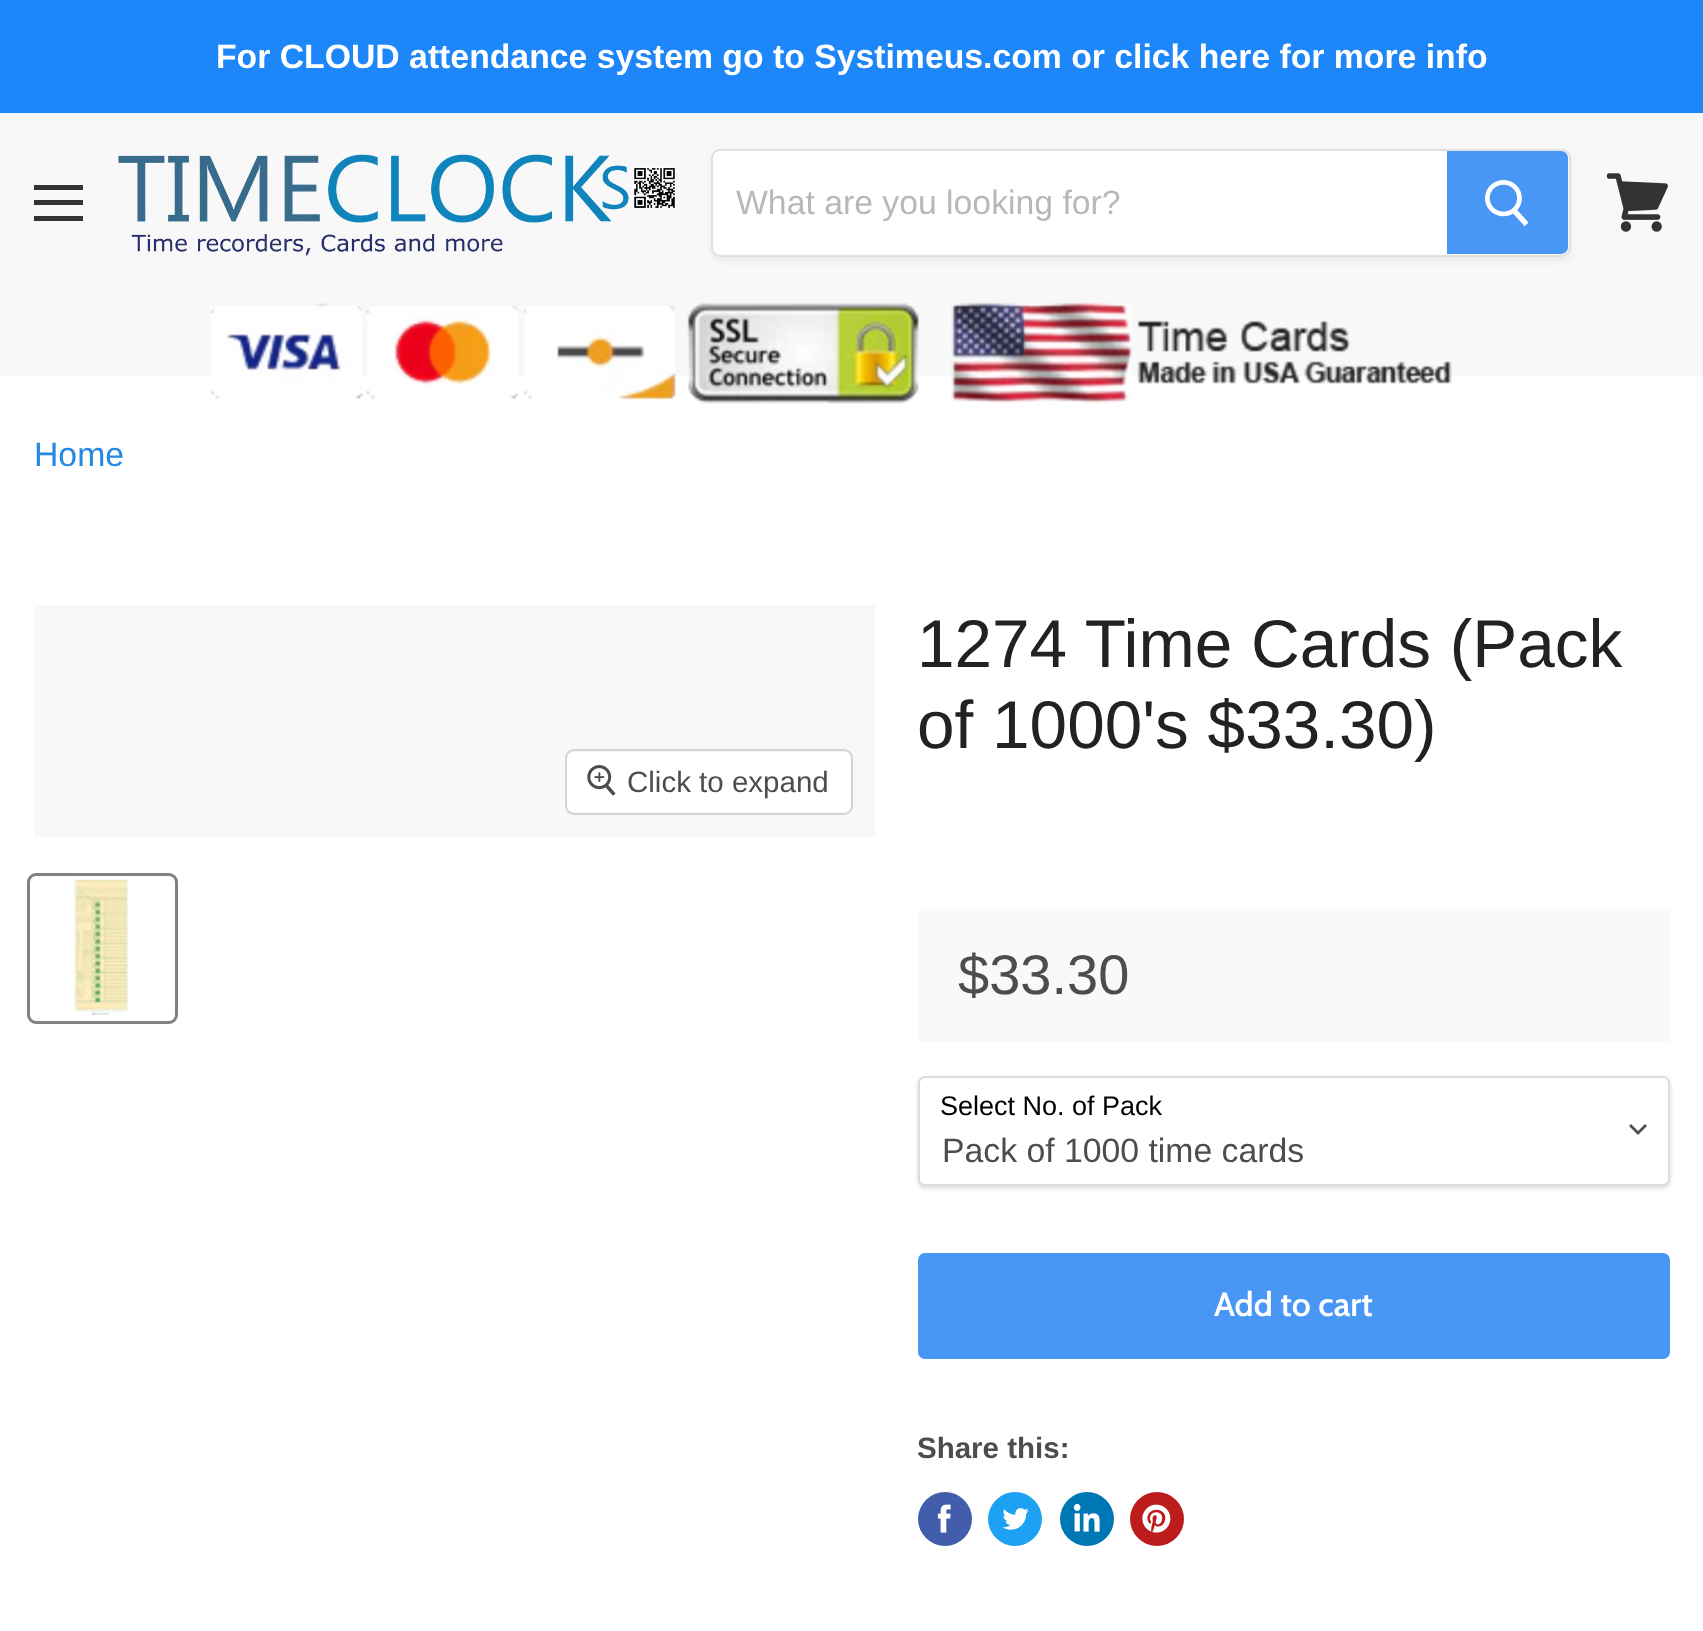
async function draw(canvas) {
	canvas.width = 1703;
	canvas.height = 1631;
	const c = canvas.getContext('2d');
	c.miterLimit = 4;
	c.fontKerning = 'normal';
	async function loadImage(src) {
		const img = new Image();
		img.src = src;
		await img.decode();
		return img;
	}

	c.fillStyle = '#fff';
	c.fillRect(0, 0, 1703, 1631);
	c.fillStyle = '#1d86f8';
	c.fillRect(0, 0, 1703, 113);
	c.font = 'bold 33.75px Liberation Sans';
	c.fillStyle = '#fff';
	c.fillText('For CLOUD attendance system go to Systimeus.com or click here for more info', 216, 68);
	for (const [x, y, w, h, color] of [
		[0, 113, 1703, 263, '#f8f8f8'],
		[34, 185, 49, 5, '#333'],
		[34, 200, 49, 5, '#333'],
		[34, 216, 49, 5, '#333'],
	]) {
		c.fillStyle = color;
		c.fillRect(x, y, w, h);
	}
	c.drawImage(await loadImage('img1.png'), 118, 154, 558, 102);
	c.save();
	c.beginPath();
	c.moveTo(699, 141);
	c.lineTo(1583, 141);
	c.lineTo(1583, 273);
	c.lineTo(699, 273);
	c.closePath();
	c.moveTo(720, 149);
	c.lineTo(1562, 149);
	c.bezierCurveTo(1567, 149, 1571, 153, 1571, 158);
	c.lineTo(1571, 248);
	c.bezierCurveTo(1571, 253, 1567, 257, 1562, 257);
	c.lineTo(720, 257);
	c.bezierCurveTo(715, 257, 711, 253, 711, 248);
	c.lineTo(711, 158);
	c.bezierCurveTo(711, 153, 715, 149, 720, 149);
	c.closePath();
	c.clip('evenodd');
	c.fillStyle = '#8080801c';
	c.filter = 'blur(3.5px)';
	c.beginPath();
	c.roundRect(711, 153, 860, 108, 9);
	c.fill();
	c.filter = 'none';
	c.restore();
	c.beginPath();
	c.roundRect(712, 150, 858, 106, 8);
	c.strokeStyle = '#80808033';
	c.lineWidth = 2;
	c.stroke();
	c.fillStyle = '#fff';
	c.beginPath();
	c.roundRect(713, 151, 734, 103, [7, 0, 0, 7]);
	c.fill();
	c.font = '33.75px Liberation Sans';
	c.fillStyle = '#b8b8b8';
	c.fillText('What are you looking for?', 736, 214);
	c.fillStyle = '#4897f4';
	c.beginPath();
	c.roundRect(1448, 152, 119, 101, [0, 6, 6, 0]);
	c.fill();
	c.strokeStyle = '#4897f4';
	c.stroke();
	c.drawImage(await loadImage('img2.png'), 1485, 180, 44, 47);
	c.drawImage(await loadImage('img3.png'), 211, 302, 1241, 102);
	c.drawImage(await loadImage('img4.png'), 1607, 173, 61, 59);
	c.fillStyle = '#2488e6';
	c.fillText('Home', 34, 466);
	c.fillStyle = '#f8f8f8';
	c.fillRect(34, 605, 841, 232);
	c.beginPath();
	c.roundRect(566, 750, 286, 64, 8);
	c.strokeStyle = '#d3d3d3';
	c.stroke();
	c.fillStyle = '#ffffffe6';
	c.beginPath();
	c.roundRect(567, 752, 284, 60, 7);
	c.fill();
	c.drawImage(await loadImage('img5.png'), 587, 765, 29, 31);
	c.font = '29.5px Liberation Sans';
	c.fillStyle = '#4d4d4d';
	c.fillText('Click to expand', 627, 792);
	c.beginPath();
	c.roundRect(28.5, 874.5, 148, 148, 7.5);
	c.strokeStyle = '#818181';
	c.lineWidth = 3;
	c.stroke();
	c.drawImage(await loadImage('img6.png'), 73, 879, 56, 136);
	c.font = '67.5px Liberation Sans';
	c.fillStyle = '#222';
	c.fillText('1274 Time Cards (Pack', 917, 667);
	c.fillText('of 1000\'s $33.30)', 917, 748);
	c.fillStyle = '#f9f9f9';
	c.fillRect(918, 909, 752, 133);
	c.font = '56px Liberation Sans';
	c.fillStyle = '#4d4d4d';
	c.fillText('$33.30', 958, 994);
	c.fillStyle = '#00000026';
	c.filter = 'blur(2px)';
	c.beginPath();
	c.roundRect(918, 1078, 752, 110, 7);
	c.fill();
	c.filter = 'none';
	c.fillStyle = '#fff';
	c.beginPath();
	c.roundRect(919, 1077, 750, 108, 6);
	c.fill();
	c.strokeStyle = '#ddd';
	c.lineWidth = 2;
	c.stroke();
	c.font = '27px Liberation Sans';
	c.fillStyle = '#000';
	c.fillText('Select No. of Pack', 940, 1115);
	c.beginPath();
	c.moveTo(1638, 1133);
	c.lineTo(1645, 1126);
	c.moveTo(1638, 1133);
	c.lineTo(1631, 1126);
	c.strokeStyle = '#4d4d4d';
	c.lineWidth = 2.8;
	c.lineCap = 'square';
	c.stroke();
	c.font = '33.75px Liberation Sans';
	c.fillStyle = '#4d4d4d';
	c.fillText('Pack of 1000 time cards', 942, 1162);
	c.fillStyle = '#4897f4';
	c.beginPath();
	c.roundRect(919, 1254, 750, 104, 6);
	c.fill();
	c.strokeStyle = '#4897f4';
	c.lineWidth = 2;
	c.stroke();
	c.font = '600 33.75px Cabin';
	c.fillStyle = '#fff';
	c.fillText('Add to cart', 1214, 1316);
	c.font = 'bold 29.5px Liberation Sans';
	c.fillStyle = '#4d4d4d';
	c.fillText('Share this:', 917, 1458);
	c.fillStyle = '#425dab';
	c.beginPath();
	c.arc(945, 1519, 27, 0, 2 * Math.PI);
	c.fill();
	c.drawImage(await loadImage('img7.png'), 937, 1504, 14, 29);
	c.fillStyle = '#1da1f2';
	c.beginPath();
	c.arc(1015, 1519, 27, 0, 2 * Math.PI);
	c.fill();
	c.drawImage(await loadImage('img8.png'), 1002, 1508, 27, 22);
	c.fillStyle = '#0077b5';
	c.beginPath();
	c.arc(1087, 1519, 27, 0, 2 * Math.PI);
	c.fill();
	c.drawImage(await loadImage('img9.png'), 1073, 1503, 27, 29);
	c.fillStyle = '#bd1c1c';
	c.beginPath();
	c.arc(1157, 1519, 27, 0, 2 * Math.PI);
	c.fill();
	c.drawImage(await loadImage('img10.png'), 1142, 1504, 29, 29);
}

draw(document.querySelector('canvas'));
